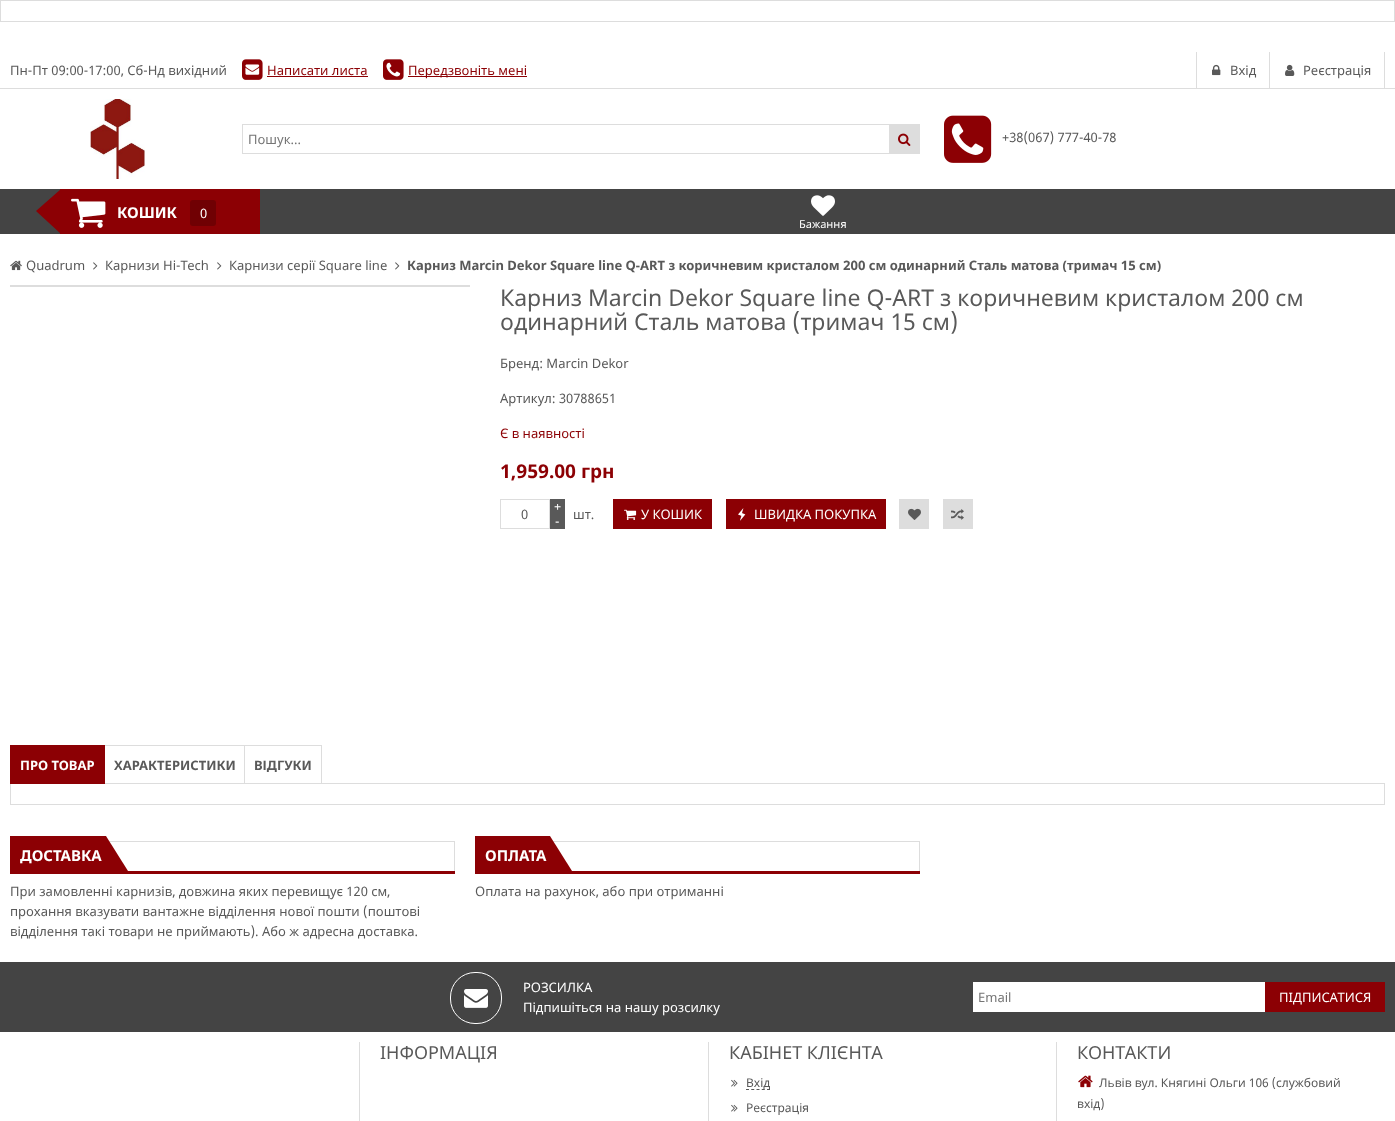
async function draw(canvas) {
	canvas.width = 1395;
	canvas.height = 1121;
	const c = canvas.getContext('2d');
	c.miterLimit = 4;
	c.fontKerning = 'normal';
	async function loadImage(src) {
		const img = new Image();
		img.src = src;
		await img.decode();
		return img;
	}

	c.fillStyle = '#fff';
	c.fillRect(0, 0, 1395, 1121);
	c.strokeStyle = '#ddd';
	c.strokeRect(0.5, 0.5, 1394, 21);
	c.fillStyle = '#ddd';
	c.fillRect(0, 88, 1395, 1);
	c.font = '13px Noto Sans';
	c.fillStyle = '#595959';
	c.fillText('Пн-Пт 09:00-17:00, Сб-Нд вихідний', 10, 75);
	c.drawImage(await loadImage('img1.png'), 242, 59, 21, 21);
	c.fillStyle = '#8c0004';
	c.fillText('Написати листа', 267, 75);
	c.fillRect(267, 76, 101, 1);
	c.drawImage(await loadImage('img2.png'), 383, 59, 21, 21);
	c.fillRect(408, 76, 119, 1);
	c.fillText('Передзвоніть мені', 408, 75);
	c.fillStyle = '#ddd';
	c.fillRect(1269, 52, 1, 36);
	c.fillRect(1196, 52, 1, 36);
	c.drawImage(await loadImage('img3.png'), 1212, 64, 9, 12);
	c.fillStyle = '#595959';
	c.fillText('Вхід', 1230, 75);
	c.fillStyle = '#ddd';
	c.fillRect(1384, 52, 1, 36);
	c.drawImage(await loadImage('img4.png'), 1285, 64, 10, 12);
	c.fillStyle = '#595959';
	c.fillText('Реєстрація', 1303, 75);
	c.drawImage(await loadImage('img5.png'), 90, 99, 55, 80);
	c.strokeRect(242.5, 124.5, 677, 29);
	c.fillStyle = '#757575';
	c.fillText('Пошук...', 248, 144);
	c.fillStyle = '#ddd';
	c.fillRect(889, 125, 30, 28);
	c.drawImage(await loadImage('img6.png'), 898, 133, 13, 13);
	c.drawImage(await loadImage('img7.png'), 944, 115, 48, 48);
	c.fillStyle = '#595959';
	c.fillText('+38(067) 777-40-78', 1002, 142);
	c.fillStyle = '#444';
	c.fillRect(0, 189, 1395, 45);
	c.fillStyle = '#8c0004';
	c.fillRect(60, 189, 200, 45);
	c.beginPath();
	c.moveTo(61, 189);
	c.lineTo(61, 234);
	c.lineTo(36, 211);
	c.closePath();
	c.fill();
	c.drawImage(await loadImage('img8.png'), 71, 198, 35, 30);
	c.font = 'bold 15px Noto Sans';
	c.fillStyle = '#fff';
	c.fillText('КОШИК', 117, 218);
	c.fillStyle = '#700003';
	c.beginPath();
	c.roundRect(190, 200, 26, 26, 3);
	c.fill();
	c.font = '13px Noto Sans';
	c.fillStyle = '#fff';
	c.fillText('0', 200, 218);
	c.drawImage(await loadImage('img9.png'), 811, 195, 24, 21);
	c.font = '11px Noto Sans';
	c.fillText('Бажання', 799, 228);
	c.drawImage(await loadImage('img10.png'), 10, 260, 12, 11);
	c.font = '13px Noto Sans';
	c.fillStyle = '#595959';
	c.fillText('Quadrum', 26, 270);
	c.drawImage(await loadImage('img11.png'), 93, 262, 5, 8);
	c.fillText('Карнизи Hi-Tech', 105, 270);
	c.drawImage(await loadImage('img11.png'), 217, 262, 5, 8);
	c.fillText('Карнизи серії Square line', 229, 270);
	c.drawImage(await loadImage('img11.png'), 395, 262, 5, 8);
	c.font = 'bold 13px Noto Sans';
	c.fillText('Карниз Marcin Dekor Square line Q-ART з коричневим кристалом 200 см одинарний Сталь матова (тримач 15 см)', 407, 270);
	c.fillStyle = '#ddd';
	c.fillRect(10, 285, 460, 2);
	c.font = '23px Noto Sans';
	c.fillStyle = '#595959';
	c.fillText('Карниз Marcin Dekor Square line Q-ART з коричневим кристалом 200 см', 500, 306);
	c.fillText('одинарний Сталь матова (тримач 15 см)', 500, 330);
	c.font = '13px Noto Sans';
	c.fillText('Бренд: Marcin Dekor', 500, 368);
	c.fillText('Артикул: 30788651', 500, 403);
	c.fillStyle = '#8c0004';
	c.fillText('Є в наявності', 500, 438);
	c.font = 'bold 19px Noto Sans';
	c.fillText('1,959.00 грн', 500, 478);
	c.fillStyle = '#595959';
	c.fillRect(550, 499, 15, 30);
	c.font = '13px Noto Sans';
	c.fillStyle = '#fff';
	c.fillText('+', 554, 511);
	c.strokeRect(500.5, 499.5, 49, 29);
	c.fillStyle = '#595959';
	c.fillText('0', 521, 519);
	c.fillStyle = '#fff';
	c.fillText('-', 555, 526);
	c.fillStyle = '#595959';
	c.fillText('шт.', 573, 519);
	c.fillStyle = '#8c0004';
	c.fillRect(613, 499, 99, 30);
	c.drawImage(await loadImage('img12.png'), 624, 509, 13, 11);
	c.fillStyle = '#fff';
	c.fillText('У КОШИК', 641, 519);
	c.fillStyle = '#8c0004';
	c.fillRect(726, 499, 160, 30);
	c.drawImage(await loadImage('img13.png'), 738, 508, 8, 13);
	c.fillStyle = '#fff';
	c.fillText('ШВИДКА ПОКУПКА', 754, 519);
	c.fillStyle = '#ddd';
	c.fillRect(899, 499, 30, 30);
	c.drawImage(await loadImage('img14.png'), 908, 508, 13, 12);
	c.fillRect(943, 499, 30, 30);
	c.drawImage(await loadImage('img15.png'), 951, 509, 13, 11);
	c.strokeRect(10.5, 783.5, 1374, 21);
	c.fillStyle = '#8c0004';
	c.fillRect(10, 745, 95, 39);
	c.font = 'bold 13px Noto Sans';
	c.fillStyle = '#fff';
	c.fillText('ПРО ТОВАР', 20, 770);
	c.fillStyle = '#ddd';
	c.fillRect(105, 745, 217, 1);
	c.fillRect(244, 745, 1, 39);
	c.fillStyle = '#595959';
	c.fillText('ХАРАКТЕРИСТИКИ', 114, 770);
	c.fillStyle = '#ddd';
	c.fillRect(321, 745, 1, 39);
	c.fillStyle = '#595959';
	c.fillText('ВІДГУКИ', 254, 770);
	for (const [x, y, w, h, color] of [
		[109, 841, 346, 1, '#ddd'],
		[454, 841, 1, 30, '#ddd'],
		[10, 836, 96, 35, '#8c0004'],
	]) {
		c.fillStyle = color;
		c.fillRect(x, y, w, h);
	}
	c.font = 'bold 15px Noto Sans';
	c.fillStyle = '#fff';
	c.fillText('ДОСТАВКА', 20, 861);
	c.fillStyle = '#8c0004';
	c.beginPath();
	c.moveTo(106, 871);
	c.lineTo(106, 836);
	c.lineTo(128, 871);
	c.closePath();
	c.fill();
	c.fillRect(10, 871, 445, 3);
	c.font = '13px Noto Sans';
	c.fillStyle = '#595959';
	for (const [text, x, y] of [
		['При замовленні карнизів, довжина яких перевищує 120 см,', 10, 896],
		['прохання вказувати вантажне відділення нової пошти (поштові', 10, 916],
		['відділення такі товари не приймають). Або ж адресна доставка.', 10, 936],
	]) {
		c.fillText(text, x, y);
	}
	for (const [x, y, w, h, color] of [
		[553, 841, 367, 1, '#ddd'],
		[919, 841, 1, 30, '#ddd'],
		[475, 836, 75, 35, '#8c0004'],
	]) {
		c.fillStyle = color;
		c.fillRect(x, y, w, h);
	}
	c.font = 'bold 15px Noto Sans';
	c.fillStyle = '#fff';
	c.fillText('ОПЛАТА', 485, 861);
	c.fillStyle = '#8c0004';
	c.beginPath();
	c.moveTo(550, 871);
	c.lineTo(550, 836);
	c.lineTo(572, 871);
	c.closePath();
	c.fill();
	c.fillRect(475, 871, 445, 3);
	c.font = '13px Noto Sans';
	c.fillStyle = '#595959';
	c.fillText('Оплата на рахунок, або при отриманні', 475, 896);
	c.fillStyle = '#444';
	c.fillRect(0, 962, 1395, 70);
	c.beginPath();
	c.roundRect(450.5, 972.5, 51, 51, 24.5);
	c.strokeStyle = '#fff';
	c.stroke();
	c.drawImage(await loadImage('img16.png'), 464, 989, 24, 19);
	c.fillStyle = '#fff';
	c.fillText('РОЗСИЛКА', 523, 992);
	c.fillText('Підпишіться на нашу розсилку', 523, 1012);
	c.fillRect(973, 982, 292, 30);
	c.fillStyle = '#757575';
	c.fillText('Email', 978, 1002);
	c.fillStyle = '#8c0004';
	c.fillRect(1265, 982, 120, 30);
	c.fillStyle = '#fff';
	c.fillText('ПІДПИСАТИСЯ', 1279, 1002);
	c.fillStyle = '#ddd';
	c.fillRect(359, 1042, 1, 79);
	c.font = '18px Noto Sans';
	c.fillStyle = '#595959';
	c.fillText('ІНФОРМАЦІЯ', 380, 1059);
	c.fillStyle = '#ddd';
	c.fillRect(708, 1042, 1, 79);
	c.fillStyle = '#595959';
	c.fillText('КАБІНЕТ КЛІЄНТА', 729, 1059);
	c.drawImage(await loadImage('img17.png'), 731, 1079, 7, 8);
	c.font = '12px Noto Sans';
	c.fillText('Вхід', 746, 1087);
	c.beginPath();
	c.moveTo(746, 1089.5);
	c.lineTo(770, 1089.5);
	c.strokeStyle = '#595959';
	c.setLineDash([3, 2.25]);
	c.stroke();
	c.drawImage(await loadImage('img17.png'), 731, 1104, 7, 8);
	c.fillText('Реєстрація', 746, 1112);
	c.fillStyle = '#ddd';
	c.fillRect(1056, 1042, 1, 79);
	c.font = '18px Noto Sans';
	c.fillStyle = '#595959';
	c.fillText('КОНТАКТИ', 1077, 1059);
	c.drawImage(await loadImage('img18.png'), 1078, 1075, 15, 13);
	c.font = '12px Noto Sans';
	c.fillText('Львів вул. Княгині Ольги 106 (службовий', 1099, 1087);
	c.fillText('вхід)', 1077, 1108);
}

draw(document.querySelector('canvas'));
